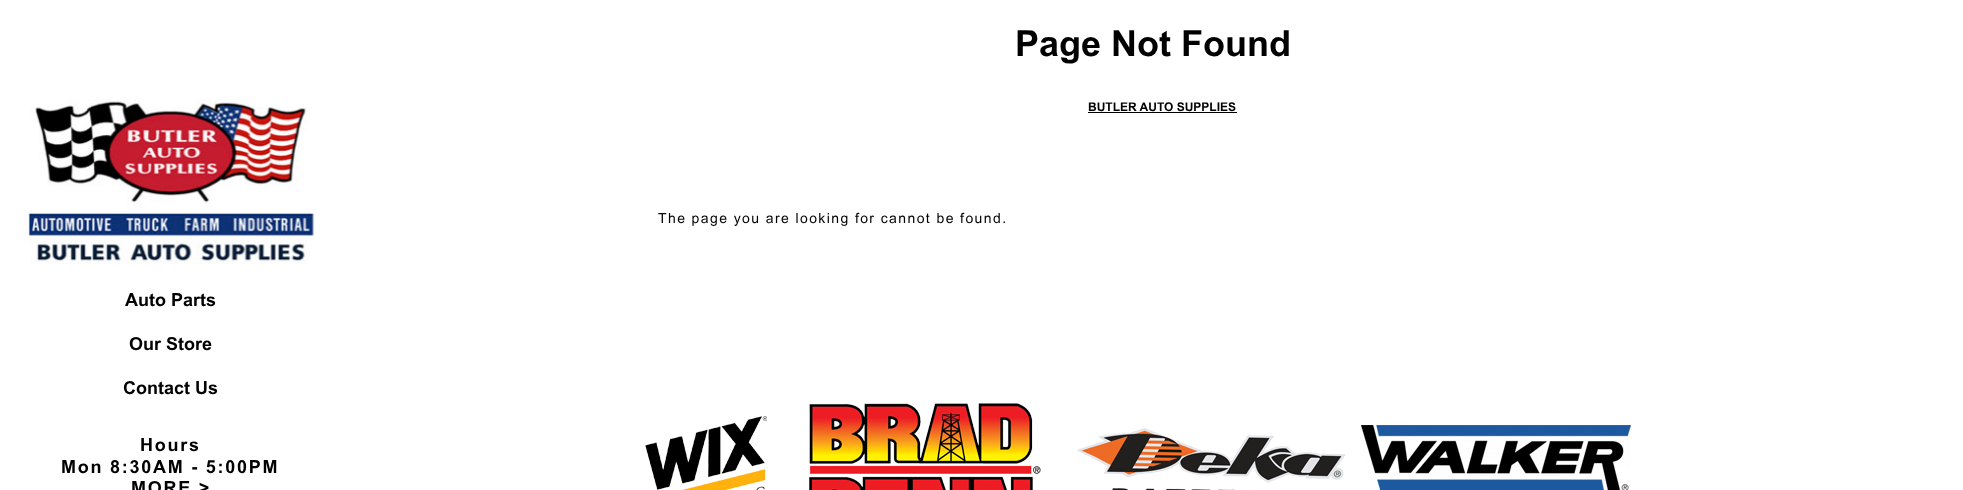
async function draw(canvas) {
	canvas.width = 1963;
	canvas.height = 490;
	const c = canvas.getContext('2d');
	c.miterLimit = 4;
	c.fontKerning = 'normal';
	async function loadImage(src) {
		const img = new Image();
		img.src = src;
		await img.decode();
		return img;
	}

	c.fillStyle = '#fff';
	c.fillRect(0, 0, 1963, 490);
	c.font = 'bold 36px Arial';
	c.fillStyle = '#000';
	c.fillText('Page Not Found', 1015, 56);
	c.font = 'bold 12px Arial';
	c.fillText('BUTLER AUTO SUPPLIES', 1088, 111);
	c.fillRect(1088, 112, 149, 1);
	c.letterSpacing = '1.4px';
	c.font = '14px Arial';
	c.fillText('The page you are looking for cannot be found.', 658, 223);
	c.drawImage(await loadImage('img1.png'), 645, 416, 122, 74);
	c.drawImage(await loadImage('img2.png'), 809, 403, 232, 87);
	c.drawImage(await loadImage('img3.png'), 1077, 428, 269, 62);
	c.drawImage(await loadImage('img4.png'), 1361, 425, 270, 65);
	c.drawImage(await loadImage('img5.png'), 23, 99, 293, 165);
	c.letterSpacing = '0px';
	c.font = 'bold 18px Arial';
	for (const [text, x, y] of [
		['Auto Parts', 125, 306],
		['Our Store', 129, 350],
		['Contact Us', 123, 394],
	]) {
		c.fillText(text, x, y);
	}
	c.letterSpacing = '1.75px';
	for (const [text, x, y] of [
		['Hours', 140, 451],
		['Mon 8:30AM - 5:00PM', 61, 473],
		['MORE >', 131, 494],
	]) {
		c.fillText(text, x, y);
	}
}

draw(document.querySelector('canvas'));
